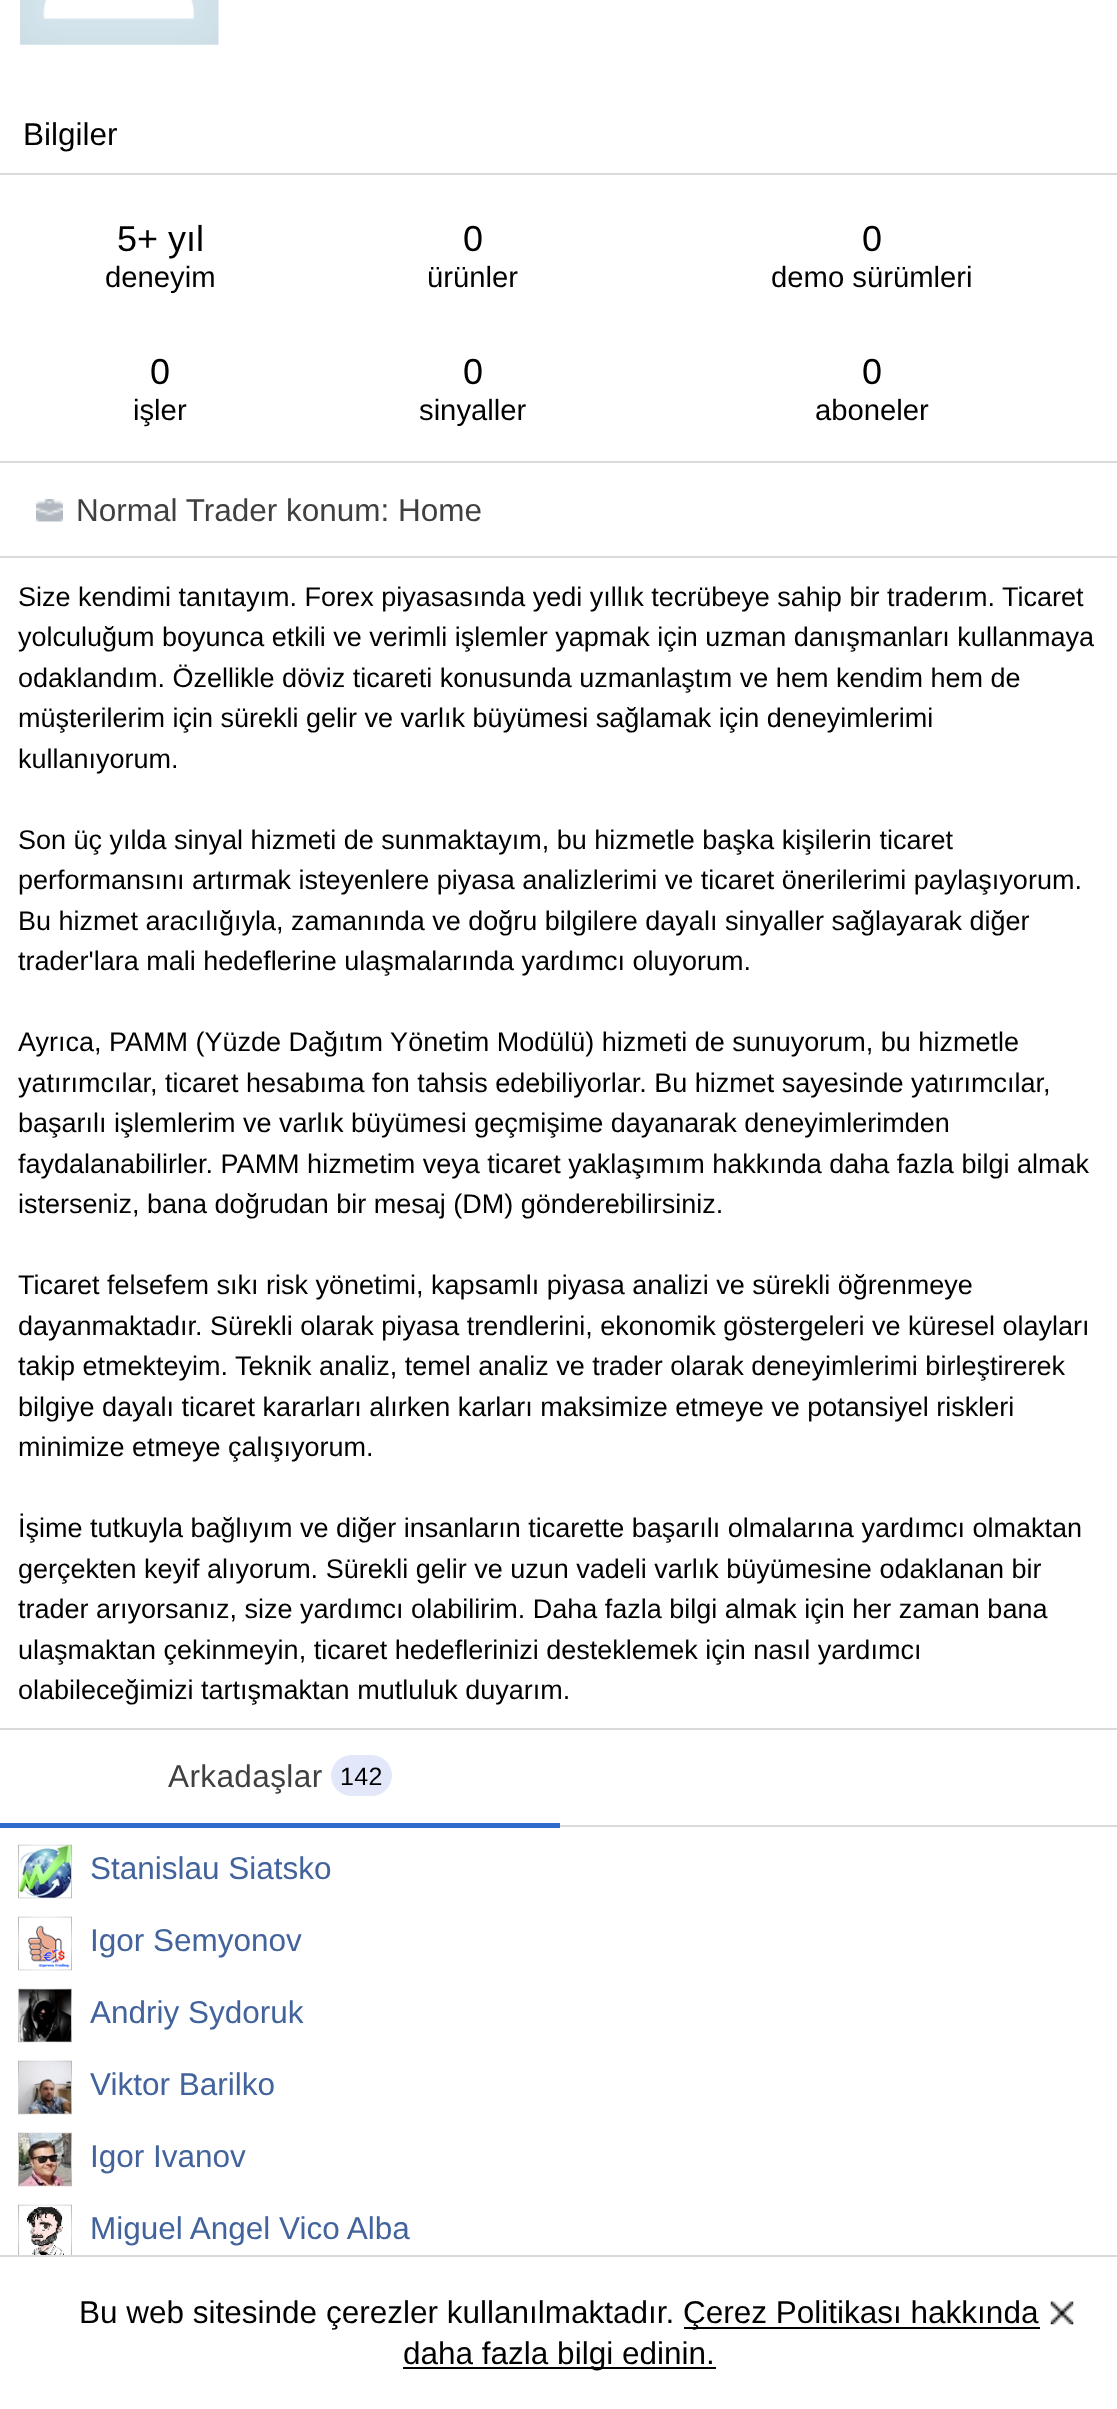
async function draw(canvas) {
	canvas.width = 1117;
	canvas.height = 2409;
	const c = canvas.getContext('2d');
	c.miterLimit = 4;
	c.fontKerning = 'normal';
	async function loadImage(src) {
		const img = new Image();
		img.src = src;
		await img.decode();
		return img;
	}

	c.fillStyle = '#fff';
	c.fillRect(0, 0, 1117, 2409);
	c.drawImage(await loadImage('img1.png'), 20, 0, 199, 45);
	c.fillStyle = '#dadada';
	c.fillRect(0, 461, 1117, 2);
	c.fillRect(0, 173, 1117, 2);
	c.font = '31.5px Liberation Sans';
	c.fillStyle = '#000';
	c.fillText('Bilgiler', 23, 145);
	c.font = '36px Liberation Sans';
	c.fillText('5+ yıl', 117, 251);
	c.font = '29.25px Liberation Sans';
	c.fillText('deneyim', 105, 287);
	c.font = '36px Liberation Sans';
	c.fillText('0', 463, 251);
	c.font = '29.25px Liberation Sans';
	c.fillText('ürünler', 427, 287);
	c.font = '36px Liberation Sans';
	c.fillText('0', 862, 251);
	c.font = '29.25px Liberation Sans';
	c.fillText('demo sürümleri', 771, 287);
	c.font = '36px Liberation Sans';
	c.fillText('0', 150, 384);
	c.font = '29.25px Liberation Sans';
	c.fillText('işler', 133, 420);
	c.font = '36px Liberation Sans';
	c.fillText('0', 463, 384);
	c.font = '29.25px Liberation Sans';
	c.fillText('sinyaller', 419, 420);
	c.font = '36px Liberation Sans';
	c.fillText('0', 862, 384);
	c.font = '29.25px Liberation Sans';
	c.fillText('aboneler', 815, 420);
	c.fillStyle = '#dadada';
	c.fillRect(0, 556, 1117, 2);
	c.drawImage(await loadImage('img2.png'), 36, 499, 27, 23);
	c.font = '31.5px Liberation Sans';
	c.fillStyle = '#404040';
	c.fillText('Normal Trader konum: Home', 76, 521);
	c.fillStyle = '#dadada';
	c.fillRect(0, 1728, 1117, 2);
	c.font = '27px Liberation Sans';
	c.fillStyle = '#000';
	for (const [text, x, y] of [
		['Size kendimi tanıtayım. Forex piyasasında yedi yıllık tecrübeye sahip bir traderım. Ticaret', 18, 606],
		['yolculuğum boyunca etkili ve verimli işlemler yapmak için uzman danışmanları kullanmaya', 18, 646],
		['odaklandım. Özellikle döviz ticareti konusunda uzmanlaştım ve hem kendim hem de', 18, 687],
		['müşterilerim için sürekli gelir ve varlık büyümesi sağlamak için deneyimlerimi', 18, 727],
		['kullanıyorum.', 18, 768],
		['Son üç yılda sinyal hizmeti de sunmaktayım, bu hizmetle başka kişilerin ticaret', 18, 849],
		['performansını artırmak isteyenlere piyasa analizlerimi ve ticaret önerilerimi paylaşıyorum.', 18, 889],
		['Bu hizmet aracılığıyla, zamanında ve doğru bilgilere dayalı sinyaller sağlayarak diğer', 18, 930],
		['trader\'lara mali hedeflerine ulaşmalarında yardımcı oluyorum.', 18, 970],
		['Ayrıca, PAMM (Yüzde Dağıtım Yönetim Modülü) hizmeti de sunuyorum, bu hizmetle', 18, 1051],
		['yatırımcılar, ticaret hesabıma fon tahsis edebiliyorlar. Bu hizmet sayesinde yatırımcılar,', 18, 1092],
		['başarılı işlemlerim ve varlık büyümesi geçmişime dayanarak deneyimlerimden', 18, 1132],
		['faydalanabilirler. PAMM hizmetim veya ticaret yaklaşımım hakkında daha fazla bilgi almak', 18, 1173],
		['isterseniz, bana doğrudan bir mesaj (DM) gönderebilirsiniz.', 18, 1213],
		['Ticaret felsefem sıkı risk yönetimi, kapsamlı piyasa analizi ve sürekli öğrenmeye', 18, 1294],
		['dayanmaktadır. Sürekli olarak piyasa trendlerini, ekonomik göstergeleri ve küresel olayları', 18, 1335],
		['takip etmekteyim. Teknik analiz, temel analiz ve trader olarak deneyimlerimi birleştirerek', 18, 1375],
		['bilgiye dayalı ticaret kararları alırken karları maksimize etmeye ve potansiyel riskleri', 18, 1416],
		['minimize etmeye çalışıyorum.', 18, 1456],
		['İşime tutkuyla bağlıyım ve diğer insanların ticarette başarılı olmalarına yardımcı olmaktan', 18, 1537],
		['gerçekten keyif alıyorum. Sürekli gelir ve uzun vadeli varlık büyümesine odaklanan bir', 18, 1578],
		['trader arıyorsanız, size yardımcı olabilirim. Daha fazla bilgi almak için her zaman bana', 18, 1618],
		['ulaşmaktan çekinmeyin, ticaret hedeflerinizi desteklemek için nasıl yardımcı', 18, 1659],
		['olabileceğimizi tartışmaktan mutluluk duyarım.', 18, 1699],
	]) {
		c.fillText(text, x, y);
	}
	c.fillStyle = '#dadada';
	c.fillRect(560, 1825, 557, 2);
	c.fillStyle = '#2c6bcb';
	c.fillRect(0, 1823, 560, 5);
	c.letterSpacing = '0.4px';
	c.font = '31.5px Liberation Sans';
	c.fillStyle = '#404040';
	c.fillText('Arkadaşlar', 168, 1787);
	c.fillStyle = '#e2e8f9';
	c.beginPath();
	c.roundRect(331, 1755, 61, 41, 20.5);
	c.fill();
	c.font = '25px Liberation Sans';
	c.fillStyle = '#000';
	c.fillText('142', 340, 1785);
	c.drawImage(await loadImage('img3.png'), 18, 1844, 54, 55);
	c.letterSpacing = '0px';
	c.font = '31.5px Liberation Sans';
	c.fillStyle = '#42639c';
	c.fillText('Stanislau Siatsko', 90, 1879);
	c.drawImage(await loadImage('img4.png'), 18, 1916, 54, 55);
	c.fillText('Igor Semyonov', 90, 1951);
	c.drawImage(await loadImage('img5.png'), 18, 1988, 54, 55);
	c.fillText('Andriy Sydoruk', 90, 2023);
	c.drawImage(await loadImage('img6.png'), 18, 2060, 54, 55);
	c.fillText('Viktor Barilko', 90, 2095);
	c.drawImage(await loadImage('img7.png'), 18, 2132, 54, 55);
	c.fillText('Igor Ivanov', 90, 2167);
	c.drawImage(await loadImage('img8.png'), 18, 2204, 54, 51);
	c.fillText('Miguel Angel Vico Alba', 90, 2239);
	c.fillStyle = '#dadada';
	c.fillRect(0, 2255, 1117, 2);
	c.fillStyle = '#000';
	c.fillText('Bu web sitesinde çerezler kullanılmaktadır.', 79, 2323);
	c.fillRect(684, 2327, 356, 2);
	c.fillText('Çerez Politikası hakkında', 683, 2323);
	c.drawImage(await loadImage('img9.png'), 1050, 2301, 24, 24);
	c.fillRect(403, 2367, 313, 2);
	c.fillText('daha fazla bilgi edinin.', 403, 2364);
}

draw(document.querySelector('canvas'));
